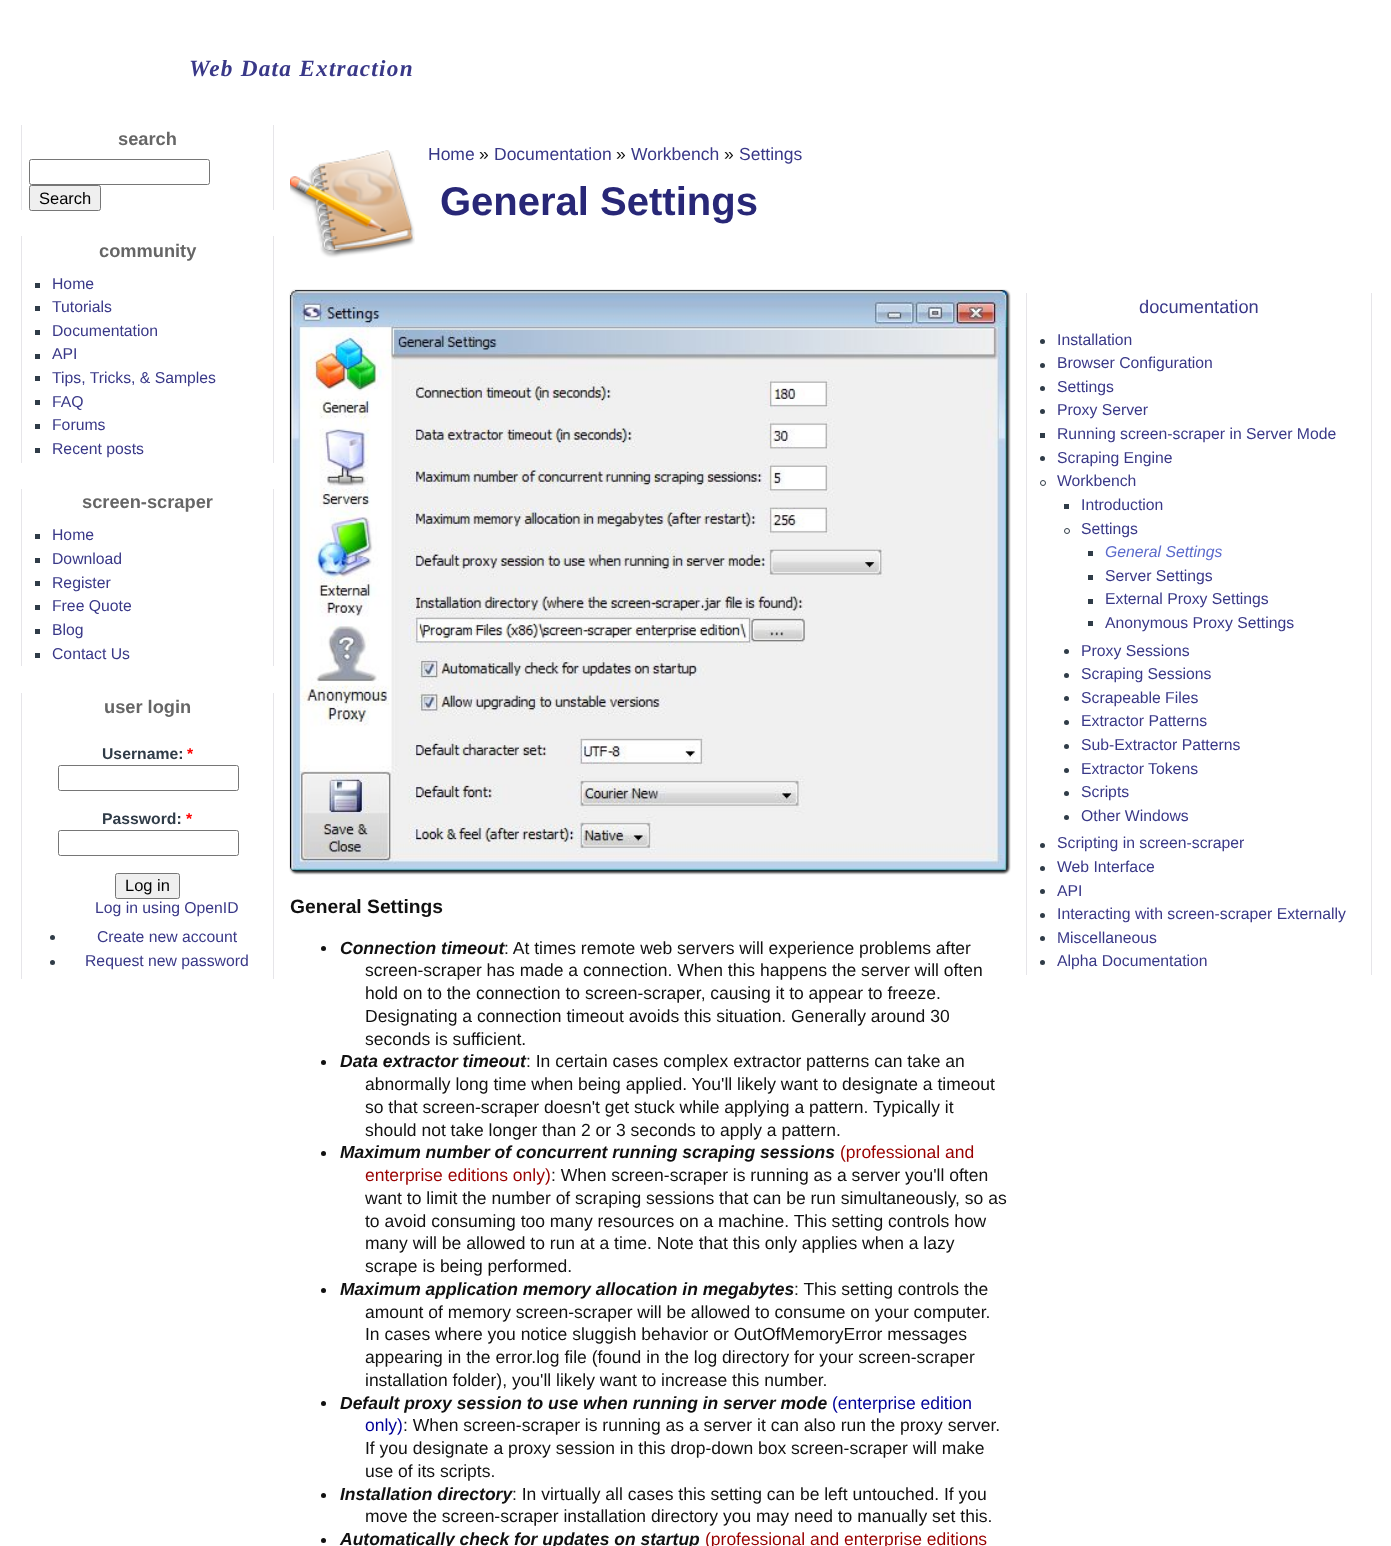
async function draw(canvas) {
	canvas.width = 1391;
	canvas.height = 1546;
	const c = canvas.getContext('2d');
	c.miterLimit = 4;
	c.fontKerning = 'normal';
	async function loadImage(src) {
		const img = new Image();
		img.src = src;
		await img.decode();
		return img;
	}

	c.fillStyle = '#fff';
	c.fillRect(0, 0, 1391, 1546);
	c.letterSpacing = '1.25px';
	c.font = 'italic bold 23.25px Liberation Serif';
	c.fillStyle = '#393888';
	c.fillText('Web Data Extraction', 189, 76);
	c.fillStyle = '#e6e5e9';
	c.fillRect(273, 125, 1, 85);
	c.fillRect(21, 125, 1, 85);
	c.letterSpacing = '0px';
	c.font = 'bold 18.25px Liberation Sans';
	c.fillStyle = '#666';
	c.fillText('search', 118, 145);
	c.beginPath();
	c.roundRect(29.5, 159.5, 180, 25, 2);
	c.strokeStyle = '#767676';
	c.stroke();
	c.fillStyle = '#efefef';
	c.beginPath();
	c.roundRect(29.5, 185.5, 71, 25, 2);
	c.fill();
	c.stroke();
	c.font = '16.5px Liberation Sans';
	c.fillStyle = '#000';
	c.fillText('Search', 39, 204);
	c.fillStyle = '#e6e5e9';
	c.fillRect(273, 236, 1, 227);
	c.fillRect(21, 236, 1, 227);
	c.font = 'bold 18.25px Liberation Sans';
	c.fillStyle = '#666';
	c.fillText('community', 99, 257);
	c.fillStyle = '#303c48';
	c.fillRect(35, 283, 5, 5);
	c.font = '15.75px Liberation Sans';
	c.fillStyle = '#393888';
	c.fillText('Home', 52, 289);
	c.fillStyle = '#303c48';
	c.fillRect(35, 306, 5, 5);
	c.fillStyle = '#393888';
	c.fillText('Tutorials', 52, 312);
	c.fillStyle = '#303c48';
	c.fillRect(35, 330, 5, 5);
	c.fillStyle = '#393888';
	c.fillText('Documentation', 52, 336);
	c.fillStyle = '#303c48';
	c.fillRect(35, 354, 5, 5);
	c.fillStyle = '#393888';
	c.fillText('API', 52, 359);
	c.fillStyle = '#303c48';
	c.fillRect(35, 376, 5, 5);
	c.fillStyle = '#393888';
	c.fillText('Tips, Tricks, & Samples', 52, 383);
	c.fillStyle = '#303c48';
	c.fillRect(35, 400, 5, 5);
	c.fillStyle = '#393888';
	c.fillText('FAQ', 52, 407);
	c.fillStyle = '#303c48';
	c.fillRect(35, 424, 5, 5);
	c.fillStyle = '#393888';
	c.fillText('Forums', 52, 430);
	c.fillStyle = '#303c48';
	c.fillRect(35, 448, 5, 5);
	c.fillStyle = '#393888';
	c.fillText('Recent posts', 52, 454);
	c.fillStyle = '#e6e5e9';
	c.fillRect(273, 489, 1, 177);
	c.fillRect(21, 489, 1, 177);
	c.font = 'bold 18.25px Liberation Sans';
	c.fillStyle = '#666';
	c.fillText('screen-scraper', 82, 508);
	c.fillStyle = '#303c48';
	c.fillRect(35, 534, 5, 5);
	c.font = '15.75px Liberation Sans';
	c.fillStyle = '#393888';
	c.fillText('Home', 52, 540);
	c.fillStyle = '#303c48';
	c.fillRect(35, 558, 5, 5);
	c.fillStyle = '#393888';
	c.fillText('Download', 52, 564);
	c.fillStyle = '#303c48';
	c.fillRect(35, 581, 5, 5);
	c.fillStyle = '#393888';
	c.fillText('Register', 52, 588);
	c.fillStyle = '#303c48';
	c.fillRect(35, 605, 5, 5);
	c.fillStyle = '#393888';
	c.fillText('Free Quote', 52, 611);
	c.fillStyle = '#303c48';
	c.fillRect(35, 629, 5, 5);
	c.fillStyle = '#393888';
	c.fillText('Blog', 52, 635);
	c.fillStyle = '#303c48';
	c.fillRect(35, 653, 5, 5);
	c.fillStyle = '#393888';
	c.fillText('Contact Us', 52, 659);
	c.fillStyle = '#e6e5e9';
	c.fillRect(273, 693, 1, 286);
	c.fillRect(21, 693, 1, 286);
	c.font = 'bold 18.25px Liberation Sans';
	c.fillStyle = '#666';
	c.fillText('user login', 104, 713);
	c.font = 'bold 15.75px Liberation Sans';
	c.fillStyle = '#303c48';
	c.fillText('Username:', 102, 759);
	c.fillStyle = '#f00';
	c.fillText('*', 187, 759);
	c.beginPath();
	c.roundRect(58.5, 765.5, 180, 25, 2);
	c.stroke();
	c.fillStyle = '#303c48';
	c.fillText('Password:', 102, 824);
	c.fillStyle = '#f00';
	c.fillText('*', 186, 824);
	c.beginPath();
	c.roundRect(58.5, 830.5, 180, 25, 2);
	c.stroke();
	c.fillStyle = '#efefef';
	c.beginPath();
	c.roundRect(115.5, 873.5, 64, 25, 2);
	c.fill();
	c.stroke();
	c.font = '16.5px Liberation Sans';
	c.fillStyle = '#000';
	c.fillText('Log in', 125, 891);
	c.font = '15.75px Liberation Sans';
	c.fillStyle = '#393888';
	c.fillText('Log in using OpenID', 95, 913);
	c.fillStyle = '#303c48';
	c.beginPath();
	c.arc(52.5, 937.5, 2.5, 0, 2 * Math.PI);
	c.fill();
	c.fillStyle = '#393888';
	c.fillText('Create new account', 97, 942);
	c.fillStyle = '#303c48';
	c.beginPath();
	c.arc(52.5, 962.5, 2.5, 0, 2 * Math.PI);
	c.fill();
	c.fillStyle = '#393888';
	c.fillText('Request new password', 85, 966);
	c.font = '17.5px Liberation Sans';
	c.fillText('Home', 428, 160);
	c.fillStyle = '#111';
	c.fillText('»', 479, 160);
	c.fillStyle = '#393888';
	c.fillText('Documentation', 494, 160);
	c.fillStyle = '#111';
	c.fillText('»', 616, 160);
	c.fillStyle = '#393888';
	c.fillText('Workbench', 631, 160);
	c.fillStyle = '#111';
	c.fillText('»', 724, 160);
	c.fillStyle = '#393888';
	c.fillText('Settings', 739, 160);
	c.drawImage(await loadImage('img1.png'), 290, 150, 125, 108);
	c.font = 'bold 40px Liberation Sans';
	c.fillStyle = '#282777';
	c.fillText('General Settings', 440, 215);
	c.fillStyle = '#e6e5e9';
	c.fillRect(1371, 293, 1, 682);
	c.fillRect(1026, 293, 1, 682);
	c.font = '18.25px Liberation Sans';
	c.fillStyle = '#393888';
	c.fillText('documentation', 1139, 313);
	c.fillStyle = '#303c48';
	c.beginPath();
	c.arc(1042.5, 341.5, 2.5, 0, 2 * Math.PI);
	c.fill();
	c.font = '15.75px Liberation Sans';
	c.fillStyle = '#393888';
	c.fillText('Installation', 1057, 345);
	c.fillStyle = '#303c48';
	c.beginPath();
	c.arc(1042.5, 365.5, 2.5, 0, 2 * Math.PI);
	c.fill();
	c.fillStyle = '#393888';
	c.fillText('Browser Configuration', 1057, 368);
	c.fillStyle = '#303c48';
	c.beginPath();
	c.arc(1042.5, 388.5, 2.5, 0, 2 * Math.PI);
	c.fill();
	c.fillStyle = '#393888';
	c.fillText('Settings', 1057, 392);
	c.fillStyle = '#303c48';
	c.beginPath();
	c.arc(1042.5, 411.5, 2.5, 0, 2 * Math.PI);
	c.fill();
	c.fillStyle = '#393888';
	c.fillText('Proxy Server', 1057, 415);
	c.fillStyle = '#303c48';
	c.fillRect(1040, 433, 5, 5);
	c.fillStyle = '#393888';
	c.fillText('Running screen-scraper in Server Mode', 1057, 439);
	c.fillStyle = '#303c48';
	c.beginPath();
	c.arc(1042.5, 458.5, 2.5, 0, 2 * Math.PI);
	c.fill();
	c.fillStyle = '#393888';
	c.fillText('Scraping Engine', 1057, 463);
	c.beginPath();
	c.arc(1043, 483, 2.5, 0, 2 * Math.PI);
	c.strokeStyle = '#303c48';
	c.stroke();
	c.fillText('Workbench', 1057, 486);
	c.fillStyle = '#303c48';
	c.fillRect(1064, 504, 5, 5);
	c.fillStyle = '#393888';
	c.fillText('Introduction', 1081, 510);
	c.beginPath();
	c.arc(1067, 531, 2.5, 0, 2 * Math.PI);
	c.stroke();
	c.fillText('Settings', 1081, 534);
	c.fillStyle = '#303c48';
	c.fillRect(1088, 551, 5, 5);
	c.font = 'italic 15.75px Liberation Sans';
	c.fillStyle = '#5b6bcc';
	c.fillText('General Settings', 1105, 557);
	c.fillStyle = '#303c48';
	c.fillRect(1088, 575, 5, 5);
	c.font = '15.75px Liberation Sans';
	c.fillStyle = '#393888';
	c.fillText('Server Settings', 1105, 581);
	c.fillStyle = '#303c48';
	c.fillRect(1088, 599, 5, 5);
	c.fillStyle = '#393888';
	c.fillText('External Proxy Settings', 1105, 604);
	c.fillStyle = '#303c48';
	c.fillRect(1088, 621, 5, 5);
	c.fillStyle = '#393888';
	c.fillText('Anonymous Proxy Settings', 1105, 628);
	c.fillStyle = '#303c48';
	c.beginPath();
	c.arc(1066.5, 651.5, 2.5, 0, 2 * Math.PI);
	c.fill();
	c.fillStyle = '#393888';
	c.fillText('Proxy Sessions', 1081, 656);
	c.fillStyle = '#303c48';
	c.beginPath();
	c.arc(1066.5, 675.5, 2.5, 0, 2 * Math.PI);
	c.fill();
	c.fillStyle = '#393888';
	c.fillText('Scraping Sessions', 1081, 679);
	c.fillStyle = '#303c48';
	c.beginPath();
	c.arc(1066.5, 698.5, 2.5, 0, 2 * Math.PI);
	c.fill();
	c.fillStyle = '#393888';
	c.fillText('Scrapeable Files', 1081, 703);
	c.fillStyle = '#303c48';
	c.beginPath();
	c.arc(1066.5, 722.5, 2.5, 0, 2 * Math.PI);
	c.fill();
	c.fillStyle = '#393888';
	c.fillText('Extractor Patterns', 1081, 726);
	c.fillStyle = '#303c48';
	c.beginPath();
	c.arc(1066.5, 746.5, 2.5, 0, 2 * Math.PI);
	c.fill();
	c.fillStyle = '#393888';
	c.fillText('Sub-Extractor Patterns', 1081, 750);
	c.fillStyle = '#303c48';
	c.beginPath();
	c.arc(1066.5, 770.5, 2.5, 0, 2 * Math.PI);
	c.fill();
	c.fillStyle = '#393888';
	c.fillText('Extractor Tokens', 1081, 774);
	c.fillStyle = '#303c48';
	c.beginPath();
	c.arc(1066.5, 793.5, 2.5, 0, 2 * Math.PI);
	c.fill();
	c.fillStyle = '#393888';
	c.fillText('Scripts', 1081, 797);
	c.fillStyle = '#303c48';
	c.beginPath();
	c.arc(1066.5, 817.5, 2.5, 0, 2 * Math.PI);
	c.fill();
	c.fillStyle = '#393888';
	c.fillText('Other Windows', 1081, 821);
	c.fillStyle = '#303c48';
	c.beginPath();
	c.arc(1042.5, 845.5, 2.5, 0, 2 * Math.PI);
	c.fill();
	c.fillStyle = '#393888';
	c.fillText('Scripting in screen-scraper', 1057, 848);
	c.fillStyle = '#303c48';
	c.beginPath();
	c.arc(1042.5, 868.5, 2.5, 0, 2 * Math.PI);
	c.fill();
	c.fillStyle = '#393888';
	c.fillText('Web Interface', 1057, 872);
	c.fillStyle = '#303c48';
	c.beginPath();
	c.arc(1042.5, 891.5, 2.5, 0, 2 * Math.PI);
	c.fill();
	c.fillStyle = '#393888';
	c.fillText('API', 1057, 896);
	c.fillStyle = '#303c48';
	c.beginPath();
	c.arc(1042.5, 915.5, 2.5, 0, 2 * Math.PI);
	c.fill();
	c.fillStyle = '#393888';
	c.fillText('Interacting with screen-scraper Externally', 1057, 919);
	c.fillStyle = '#303c48';
	c.beginPath();
	c.arc(1042.5, 938.5, 2.5, 0, 2 * Math.PI);
	c.fill();
	c.fillStyle = '#393888';
	c.fillText('Miscellaneous', 1057, 943);
	c.fillStyle = '#303c48';
	c.beginPath();
	c.arc(1042.5, 962.5, 2.5, 0, 2 * Math.PI);
	c.fill();
	c.fillStyle = '#393888';
	c.fillText('Alpha Documentation', 1057, 966);
	c.fillStyle = '#333';
	c.filter = 'blur(1px)';
	c.beginPath();
	c.roundRect(291, 291, 718, 582, 5);
	c.fill();
	c.filter = 'none';
	c.drawImage(await loadImage('img2.png'), 290, 290, 718, 582);
	c.font = 'bold 19.25px Liberation Sans';
	c.fillStyle = '#111';
	c.fillText('General Settings', 290, 913);
	c.beginPath();
	c.arc(323.5, 948.5, 2.5, 0, 2 * Math.PI);
	c.fill();
	c.font = 'italic bold 17.5px Liberation Sans';
	c.fillText('Connection timeout', 340, 954);
	c.font = '17.5px Liberation Sans';
	for (const [text, x, y] of [
		[': At times remote web servers will experience problems after', 504, 954],
		['screen-scraper has made a connection. When this happens the server will often', 365, 976],
		['hold on to the connection to screen-scraper, causing it to appear to freeze.', 365, 999],
		['Designating a connection timeout avoids this situation. Generally around 30', 365, 1022],
		['seconds is sufficient.', 365, 1045],
	]) {
		c.fillText(text, x, y);
	}
	c.beginPath();
	c.arc(323.5, 1062.5, 2.5, 0, 2 * Math.PI);
	c.fill();
	c.font = 'italic bold 17.5px Liberation Sans';
	c.fillText('Data extractor timeout', 340, 1067);
	c.font = '17.5px Liberation Sans';
	for (const [text, x, y] of [
		[': In certain cases complex extractor patterns can take an', 526, 1067],
		['abnormally long time when being applied. You\'ll likely want to designate a timeout', 365, 1090],
		['so that screen-scraper doesn\'t get stuck while applying a pattern. Typically it', 365, 1113],
		['should not take longer than 2 or 3 seconds to apply a pattern.', 365, 1136],
	]) {
		c.fillText(text, x, y);
	}
	c.beginPath();
	c.arc(323.5, 1153.5, 2.5, 0, 2 * Math.PI);
	c.fill();
	c.font = 'italic bold 17.5px Liberation Sans';
	c.fillText('Maximum number of concurrent running scraping sessions', 340, 1158);
	c.font = '17.5px Liberation Sans';
	c.fillStyle = '#900';
	c.fillText('(professional and', 840, 1158);
	c.fillText('enterprise editions only)', 365, 1181);
	c.fillStyle = '#111';
	for (const [text, x, y] of [
		[': When screen-scraper is running as a server you\'ll often', 551, 1181],
		['want to limit the number of scraping sessions that can be run simultaneously, so as', 365, 1204],
		['to avoid consuming too many resources on a machine. This setting controls how', 365, 1227],
		['many will be allowed to run at a time. Note that this only applies when a lazy', 365, 1249],
		['scrape is being performed.', 365, 1272],
	]) {
		c.fillText(text, x, y);
	}
	c.beginPath();
	c.arc(323.5, 1290.5, 2.5, 0, 2 * Math.PI);
	c.fill();
	c.font = 'italic bold 17.5px Liberation Sans';
	c.fillText('Maximum application memory allocation in megabytes', 340, 1295);
	c.font = '17.5px Liberation Sans';
	for (const [text, x, y] of [
		[': This setting controls the', 794, 1295],
		['amount of memory screen-scraper will be allowed to consume on your computer.', 365, 1318],
		['In cases where you notice sluggish behavior or OutOfMemoryError messages', 365, 1340],
		['appearing in the error.log file (found in the log directory for your screen-scraper', 365, 1363],
		['installation folder), you\'ll likely want to increase this number.', 365, 1386],
	]) {
		c.fillText(text, x, y);
	}
	c.beginPath();
	c.arc(323.5, 1403.5, 2.5, 0, 2 * Math.PI);
	c.fill();
	c.font = 'italic bold 17.5px Liberation Sans';
	c.fillText('Default proxy session to use when running in server mode', 340, 1409);
	c.font = '17.5px Liberation Sans';
	c.fillStyle = '#009';
	c.fillText('(enterprise edition', 832, 1409);
	c.fillText('only)', 365, 1431);
	c.fillStyle = '#111';
	for (const [text, x, y] of [
		[': When screen-scraper is running as a server it can also run the proxy server.', 403, 1431],
		['If you designate a proxy session in this drop-down box screen-scraper will make', 365, 1454],
		['use of its scripts.', 365, 1477],
	]) {
		c.fillText(text, x, y);
	}
	c.beginPath();
	c.arc(323.5, 1495.5, 2.5, 0, 2 * Math.PI);
	c.fill();
	c.font = 'italic bold 17.5px Liberation Sans';
	c.fillText('Installation directory', 340, 1500);
	c.font = '17.5px Liberation Sans';
	c.fillText(': In virtually all cases this setting can be left untouched. If you', 512, 1500);
	c.fillText('move the screen-scraper installation directory you may need to manually set this.', 365, 1522);
	c.beginPath();
	c.arc(323.5, 1540.5, 2.5, 0, 2 * Math.PI);
	c.fill();
	c.font = 'italic bold 17.5px Liberation Sans';
	c.fillText('Automatically check for updates on startup', 340, 1545);
	c.font = '17.5px Liberation Sans';
	c.fillStyle = '#900';
	c.fillText('(professional and enterprise editions', 705, 1545);
}

draw(document.querySelector('canvas'));
